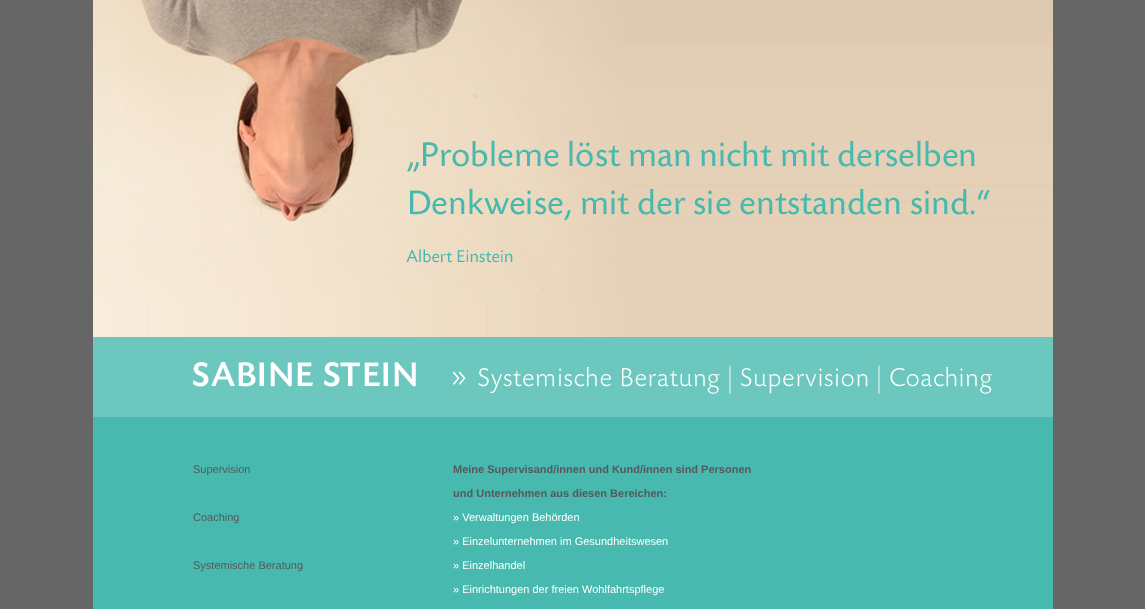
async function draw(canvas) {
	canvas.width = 1145;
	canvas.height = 609;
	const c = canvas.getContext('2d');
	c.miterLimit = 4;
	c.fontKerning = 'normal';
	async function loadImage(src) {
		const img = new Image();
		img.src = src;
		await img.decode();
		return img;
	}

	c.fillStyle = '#666';
	c.fillRect(0, 0, 1145, 609);
	c.fillStyle = '#47b9af';
	c.fillRect(93, 417, 960, 192);
	c.drawImage(await loadImage('img1.png'), 93, 0, 960, 337);
	c.fillStyle = '#6cc7be';
	c.fillRect(93, 337, 960, 80);
	c.drawImage(await loadImage('img2.png'), 193, 362, 799, 32);
	c.font = '11px Liberation Sans';
	c.fillStyle = '#58585a';
	for (const [text, x, y] of [
		['Supervision', 193, 473],
		['Coaching', 193, 521],
		['Systemische Beratung', 193, 569],
	]) {
		c.fillText(text, x, y);
	}
	c.font = 'bold 11px Liberation Sans';
	c.fillText('Meine Supervisand/innen und Kund/innen sind Personen', 453, 473);
	c.fillText('und Unternehmen aus diesen Bereichen:', 453, 497);
	c.font = '11px Liberation Sans';
	c.fillStyle = '#fff';
	for (const [text, x, y] of [
		['» Verwaltungen Behörden', 453, 521],
		['» Einzelunternehmen im Gesundheitswesen', 453, 545],
		['» Einzelhandel', 453, 569],
		['» Einrichtungen der freien Wohlfahrtspflege', 453, 593],
	]) {
		c.fillText(text, x, y);
	}
}

draw(document.querySelector('canvas'));
